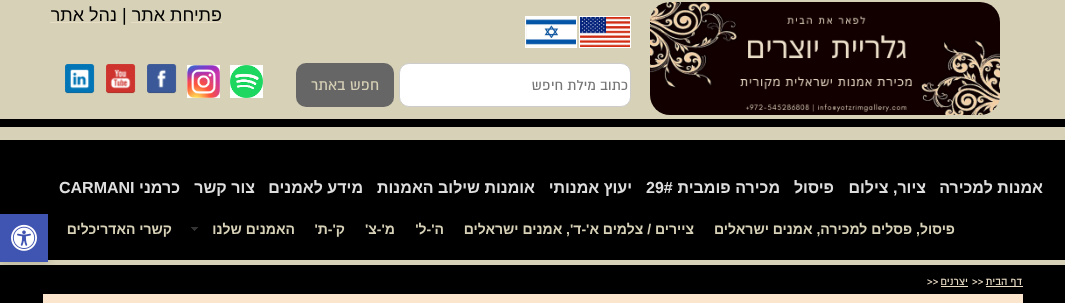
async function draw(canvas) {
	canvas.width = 1065;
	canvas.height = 303;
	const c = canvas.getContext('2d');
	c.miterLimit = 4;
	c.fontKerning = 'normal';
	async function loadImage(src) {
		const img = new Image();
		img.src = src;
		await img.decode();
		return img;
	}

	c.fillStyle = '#000';
	c.fillRect(0, 0, 1065, 303);
	c.fillStyle = '#d7d1b7';
	c.fillRect(0, 0, 1065, 119);
	c.drawImage(await loadImage('img1.png'), 650, 2, 350, 113);
	c.strokeStyle = '#fff';
	c.strokeRect(579.5, 16.5, 51, 31);
	c.drawImage(await loadImage('img2.png'), 580, 17, 50, 30);
	c.strokeRect(525.5, 16.5, 51, 31);
	c.drawImage(await loadImage('img3.png'), 526, 17, 50, 30);
	c.direction = 'rtl';
	c.font = '18px Liberation Sans';
	c.fillStyle = '#000';
	c.fillText('פתיחת אתר', 222, 21);
	c.fillStyle = '#eaddc6';
	c.fillRect(131, 22, 91, 1);
	c.direction = 'ltr';
	c.fillStyle = '#000';
	c.fillText('|', 122, 21);
	c.direction = 'rtl';
	c.fillText('נהל אתר', 117, 21);
	c.fillStyle = '#eaddc6';
	c.fillRect(50, 22, 67, 1);
	c.fillStyle = '#fff';
	c.beginPath();
	c.roundRect(399.5, 63.5, 231, 43, 9.5);
	c.fill();
	c.strokeStyle = '#ccc';
	c.stroke();
	c.font = '16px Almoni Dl';
	c.fillStyle = '#757575';
	c.fillText('כתוב מילת חיפש', 628, 90);
	c.fillStyle = '#666';
	c.beginPath();
	c.roundRect(296, 63, 98, 44, 10);
	c.fill();
	c.font = '17px Almoni Dl';
	c.fillStyle = '#d7d1b7';
	c.fillText('חפש באתר', 379, 90);
	c.drawImage(await loadImage('img4.png'), 230, 65, 33, 33);
	c.drawImage(await loadImage('img5.png'), 187, 65, 33, 33);
	c.drawImage(await loadImage('img6.png'), 147, 64, 30, 30);
	c.drawImage(await loadImage('img7.png'), 106, 64, 30, 30);
	c.drawImage(await loadImage('img8.png'), 65, 64, 30, 30);
	c.fillRect(0, 127, 1065, 13);
	c.font = 'bold 16px Liberation Sans';
	c.fillStyle = '#dedede';
	for (const [text, x, y] of [
		['אמנות למכירה', 1043, 193],
		['ציור, צילום', 926, 193],
		['פיסול', 834, 193],
		['מכירה פומבית', 780, 193],
	]) {
		c.fillText(text, x, y);
	}
	c.direction = 'ltr';
	c.fillText('29#', 646, 193);
	c.direction = 'rtl';
	for (const [text, x, y] of [
		['יעוץ אמנותי', 632, 193],
		['אומנות שילוב האמנות', 535, 193],
		['מידע לאמנים', 363, 193],
		['צור קשר', 255, 193],
		['כרמני', 180, 193],
	]) {
		c.fillText(text, x, y);
	}
	c.direction = 'ltr';
	c.fillText('CARMANI', 59, 193);
	c.direction = 'rtl';
	c.font = 'bold 14px Liberation Sans';
	c.fillStyle = '#d7d1b7';
	for (const [text, x, y] of [
		['פיסול, פסלים למכירה, אמנים ישראלים', 955, 234],
		['ציירים / צלמים', 694, 234],
		['א\'-ד\', אמנים ישראלים', 599, 234],
		['ה\'-ל\'', 444, 234],
		['מ\'-צ\'', 395, 234],
		['ק\'-ת\'', 345, 234],
	]) {
		c.fillText(text, x, y);
	}
	c.drawImage(await loadImage('img9.png'), 191, 227, 7, 4);
	c.fillText('האמנים שלנו', 295, 234);
	c.fillText('קשרי האדריכלים', 172, 234);
	c.fillRect(0, 260, 1065, 5);
	c.fillStyle = '#eaddc6';
	c.fillRect(986, 286, 37, 1);
	c.font = '12px Almoni Dl';
	c.fillText('דף הבית', 1022, 285);
	c.direction = 'ltr';
	c.fillText('>>', 972, 285);
	c.direction = 'rtl';
	c.fillText('יצרנים', 968, 285);
	c.fillRect(941, 286, 27, 1);
	c.direction = 'ltr';
	c.fillText('>>', 927, 285);
	c.fillStyle = '#fce5cd';
	c.fillRect(43, 294, 980, 9);
	c.fillStyle = '#00000033';
	c.filter = 'blur(5px)';
	c.beginPath();
	c.rect(0, 214, 48, 48);
	c.fill();
	c.filter = 'none';
	c.fillStyle = '#4054b2';
	c.fillRect(0, 214, 48, 48);
	c.drawImage(await loadImage('img10.png'), 11, 224, 26, 27);
}

draw(document.querySelector('canvas'));
